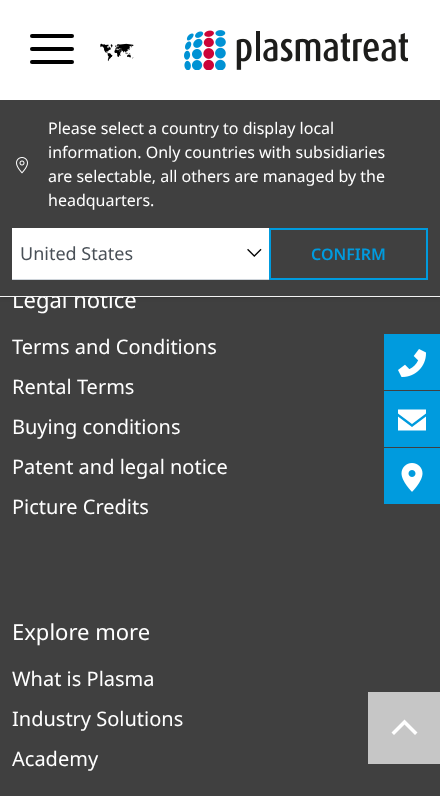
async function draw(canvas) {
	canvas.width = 440;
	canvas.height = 796;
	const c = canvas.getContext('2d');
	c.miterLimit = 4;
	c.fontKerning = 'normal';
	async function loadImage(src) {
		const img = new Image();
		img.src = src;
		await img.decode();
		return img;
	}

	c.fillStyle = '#404040';
	c.fillRect(0, 0, 440, 796);
	c.fillStyle = '#00000033';
	c.filter = 'blur(2.5px)';
	c.beginPath();
	c.rect(0, 0, 440, 297);
	c.fill();
	c.filter = 'none';
	c.fillStyle = '#fff';
	c.fillRect(0, 0, 440, 100);
	c.font = '22px Noto Sans';
	c.fillText('Legal notice', 12, 308);
	c.fillStyle = '#f3f3f3';
	c.fillRect(0, 296, 440, 1);
	c.fillStyle = '#000';
	c.beginPath();
	c.roundRect(30, 34, 44, 4, 2);
	c.fill();
	c.beginPath();
	c.roundRect(30, 47, 44, 4, 2);
	c.fill();
	c.beginPath();
	c.roundRect(30, 60, 44, 4, 2);
	c.fill();
	c.drawImage(await loadImage('img1.png'), 100, 43, 34, 19);
	c.drawImage(await loadImage('img2.png'), 184, 30, 224, 40);
	c.fillStyle = '#404040';
	c.fillRect(0, 100, 440, 196);
	c.drawImage(await loadImage('img3.png'), 16, 157, 12, 17);
	c.font = '16px Noto Sans';
	c.fillStyle = '#fff';
	for (const [text, x, y] of [
		['Please select a country to display local', 48, 134],
		['information. Only countries with subsidiaries', 48, 158],
		['are selectable, all others are managed by the', 48, 182],
		['headquarters.', 48, 206],
	]) {
		c.fillText(text, x, y);
	}
	c.fillRect(12, 228, 257, 51);
	c.drawImage(await loadImage('img4.png'), 247, 248, 15, 9);
	c.fillStyle = '#ced4da';
	c.fillRect(12, 279, 258, 1);
	c.font = '18px Noto Sans';
	c.fillStyle = '#495057';
	c.fillText('United States', 20, 260);
	c.strokeStyle = '#009bde';
	c.lineWidth = 2;
	c.strokeRect(270, 229, 157, 50);
	c.font = '600 16px Noto Sans';
	c.fillStyle = '#009bde';
	c.fillText('CONFIRM', 311, 260);
	c.font = '20px Noto Sans';
	c.fillStyle = '#fff';
	for (const [text, x, y] of [
		['Terms and Conditions', 12, 354],
		['Rental Terms', 12, 394],
		['Buying conditions', 12, 434],
		['Patent and legal notice', 12, 474],
		['Picture Credits', 12, 514],
	]) {
		c.fillText(text, x, y);
	}
	c.font = '22px Noto Sans';
	c.fillText('Explore more', 12, 640);
	c.font = '20px Noto Sans';
	for (const [text, x, y] of [
		['What is Plasma', 12, 686],
		['Industry Solutions', 12, 726],
		['Academy', 12, 766],
	]) {
		c.fillText(text, x, y);
	}
	c.fillStyle = '#009bde';
	c.fillRect(384, 334, 56, 56);
	c.drawImage(await loadImage('img5.png'), 398, 349, 28, 28);
	c.fillRect(384, 391, 56, 56);
	c.fillStyle = '#fff';
	c.beginPath();
	c.moveTo(398, 409.5);
	c.lineTo(426, 409.5);
	c.lineTo(426, 413.5);
	c.lineTo(412, 424);
	c.lineTo(398, 413.5);
	c.closePath();
	c.moveTo(398, 416.5);
	c.lineTo(412, 427);
	c.lineTo(426, 416.5);
	c.lineTo(426, 430.5);
	c.lineTo(398, 430.5);
	c.closePath();
	c.fill();
	c.fillStyle = '#009bde';
	c.fillRect(384, 448, 56, 56);
	c.drawImage(await loadImage('img6.png'), 401, 463, 22, 29);
	c.fillStyle = '#c6c6c6';
	c.fillRect(368, 692, 72, 72);
	c.fillStyle = '#fff';
	c.beginPath();
	c.moveTo(404.5, 719.5);
	c.lineTo(417.5, 732.5);
	c.lineTo(415, 735);
	c.lineTo(404.5, 724.5);
	c.lineTo(394, 735);
	c.lineTo(391.5, 732.5);
	c.closePath();
	c.fill();
}

draw(document.querySelector('canvas'));
